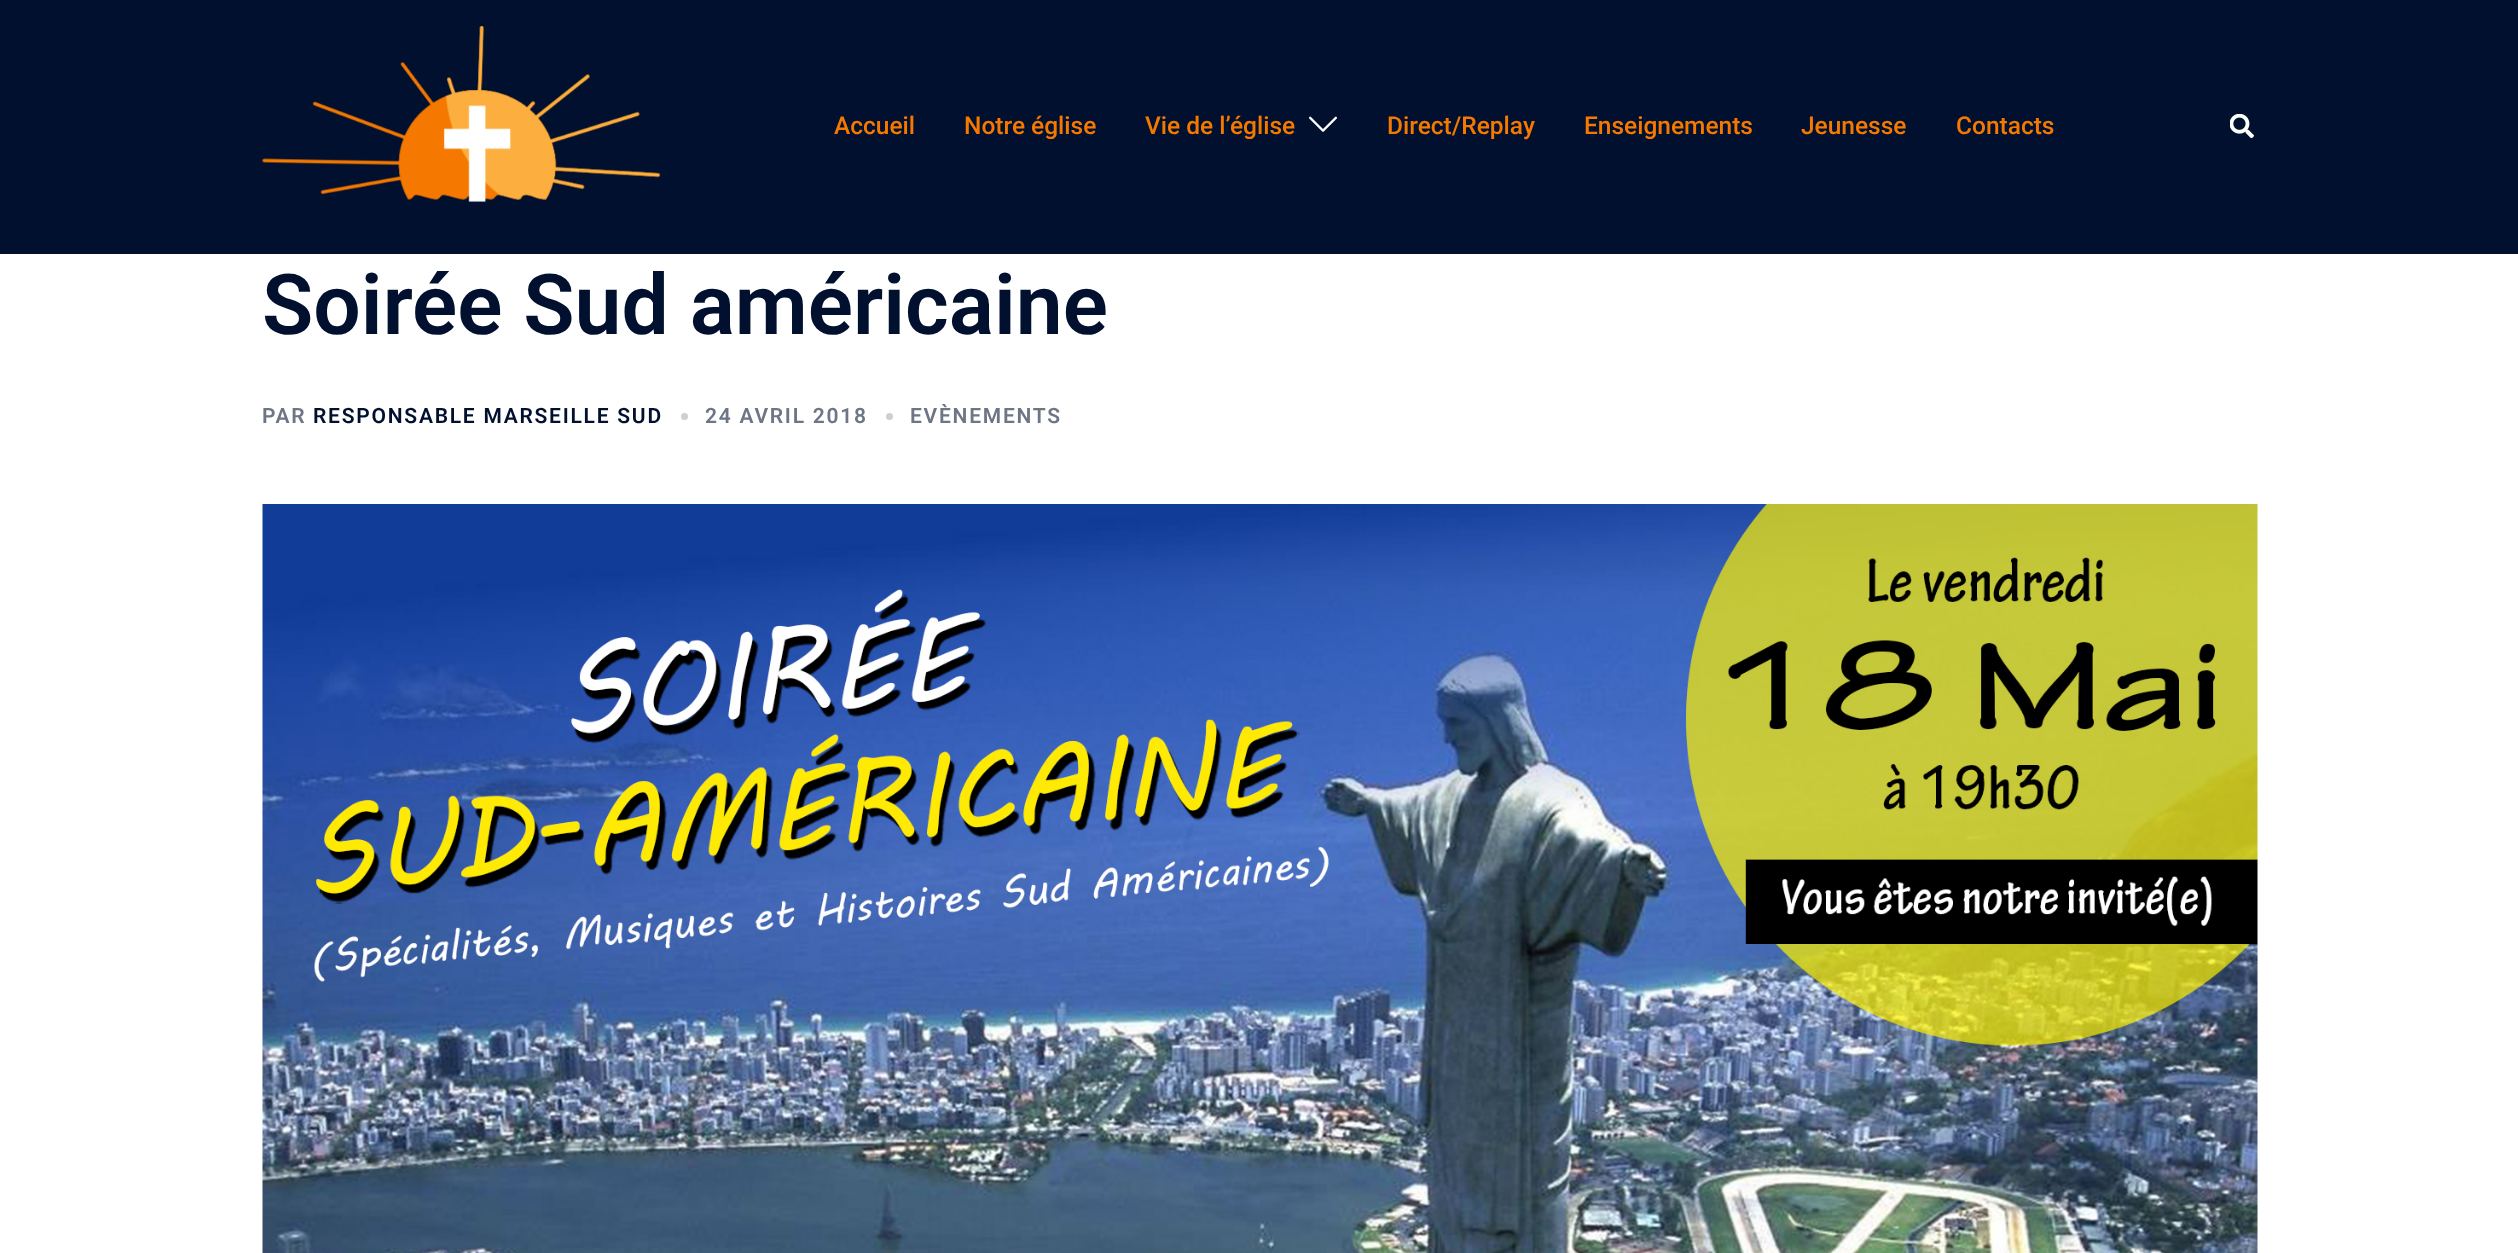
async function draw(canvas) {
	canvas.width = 2518;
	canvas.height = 1253;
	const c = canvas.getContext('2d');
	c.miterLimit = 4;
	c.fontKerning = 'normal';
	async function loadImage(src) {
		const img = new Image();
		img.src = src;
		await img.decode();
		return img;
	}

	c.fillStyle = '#fff';
	c.fillRect(0, 0, 2518, 1253);
	c.fillStyle = '#00102e';
	c.fillRect(0, 0, 2518, 254);
	c.drawImage(await loadImage('img1.png'), 262, 26, 399, 176);
	c.font = '500 24.5px Roboto';
	c.fillStyle = '#f57900';
	for (const [text, x, y] of [
		['Accueil', 834, 134],
		['Notre église', 964, 134],
		['Vie de l’église', 1145, 134],
	]) {
		c.fillText(text, x, y);
	}
	c.drawImage(await loadImage('img2.png'), 1309, 116, 28, 16);
	for (const [text, x, y] of [
		['Direct/Replay', 1387, 134],
		['Enseignements', 1584, 134],
		['Jeunesse', 1801, 134],
		['Contacts', 1956, 134],
	]) {
		c.fillText(text, x, y);
	}
	c.drawImage(await loadImage('img3.png'), 2230, 114, 24, 24);
	c.font = '600 84px Roboto';
	c.fillStyle = '#00102e';
	c.fillText('Soirée Sud américaine', 262, 334);
	c.letterSpacing = '1.75px';
	c.font = '600 21px Roboto';
	c.fillStyle = '#6d7685';
	c.fillText('PAR', 262, 423);
	c.fillStyle = '#00102e';
	c.fillText('RESPONSABLE MARSEILLE SUD', 313, 423);
	c.fillStyle = '#cccfd5';
	c.beginPath();
	c.arc(684.5, 416.5, 3.5, 0, 2 * Math.PI);
	c.fill();
	c.fillStyle = '#6d7685';
	c.fillText('24 AVRIL 2018', 705, 423);
	c.fillStyle = '#cccfd5';
	c.beginPath();
	c.arc(889.5, 416.5, 3.5, 0, 2 * Math.PI);
	c.fill();
	c.fillStyle = '#6d7685';
	c.fillText('EVÈNEMENTS', 910, 423);
	c.drawImage(await loadImage('img4.png'), 262, 504, 1996, 749);
}

draw(document.querySelector('canvas'));
